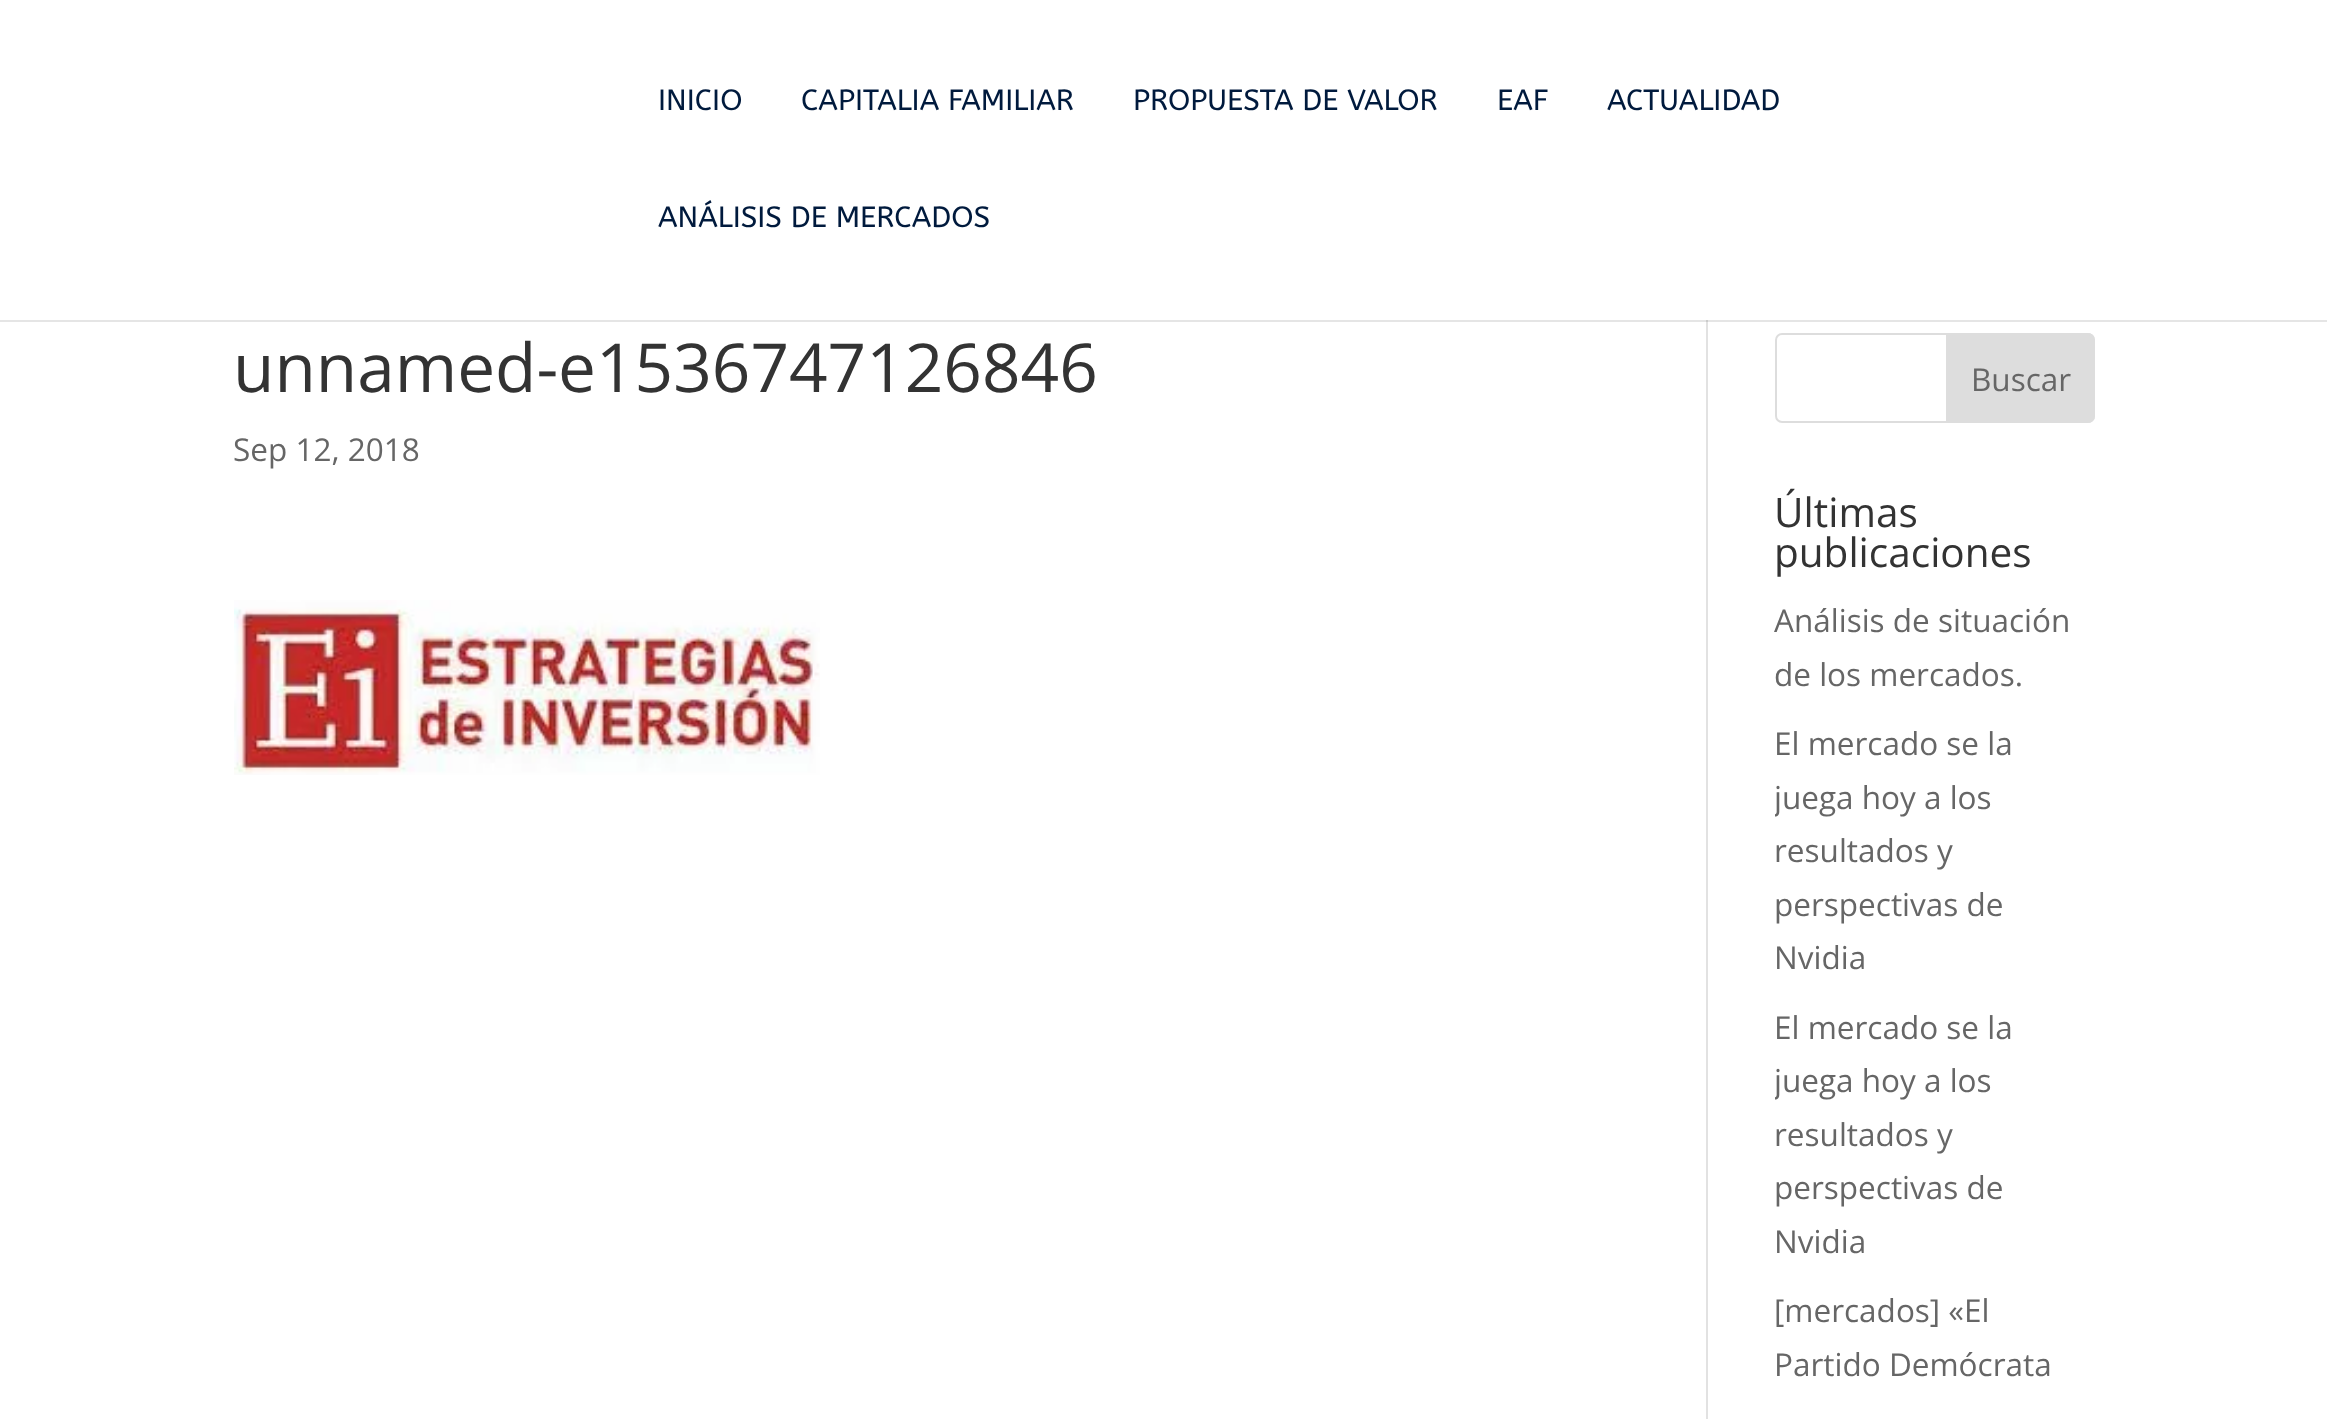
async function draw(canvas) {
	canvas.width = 2327;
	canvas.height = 1419;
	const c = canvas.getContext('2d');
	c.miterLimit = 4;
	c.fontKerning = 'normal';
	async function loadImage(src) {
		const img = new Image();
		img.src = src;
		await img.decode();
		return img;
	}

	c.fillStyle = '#fff';
	c.fillRect(0, 0, 2327, 1419);
	c.fillStyle = '#e2e2e2';
	c.fillRect(1706, 320, 2, 1099);
	c.fillStyle = '#0000001a';
	c.beginPath();
	c.moveTo(0, 320);
	c.lineTo(0, 322);
	c.lineTo(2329, 322);
	c.lineTo(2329, 2);
	c.lineTo(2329, 320);
	c.closePath();
	c.fill();
	c.font = '29.25px ABeeZee';
	c.fillStyle = '#001a3d';
	for (const [text, x, y] of [
		['INICIO', 658, 110],
		['CAPITALIA FAMILIAR', 801, 110],
		['PROPUESTA DE VALOR', 1133, 110],
		['EAF', 1497, 110],
		['ACTUALIDAD', 1607, 110],
		['ANÁLISIS DE MERCADOS', 658, 227],
	]) {
		c.fillText(text, x, y);
	}
	c.font = '67.5px Open Sans';
	c.fillStyle = '#333';
	c.fillText('unnamed-e1536747126846', 233, 392);
	c.font = '31.5px Open Sans';
	c.fillStyle = '#666';
	c.fillText('Sep 12, 2018', 233, 461);
	c.drawImage(await loadImage('img1.png'), 234, 600, 586, 175);
	c.beginPath();
	c.roundRect(1776, 334, 318, 88, 6);
	c.strokeStyle = '#ddd';
	c.lineWidth = 2;
	c.stroke();
	c.fillStyle = '#ddd';
	c.beginPath();
	c.roundRect(1947, 334, 147, 88, [0, 6, 6, 0]);
	c.fill();
	c.stroke();
	c.fillStyle = '#666';
	c.fillText('Buscar', 1971, 391);
	c.font = '40.5px Open Sans';
	c.fillStyle = '#333';
	c.fillText('Últimas', 1774, 527);
	c.fillText('publicaciones', 1774, 567);
	c.font = '31.5px Open Sans';
	c.fillStyle = '#666';
	for (const [text, x, y] of [
		['Análisis de situación', 1774, 632],
		['de los mercados.', 1774, 686],
		['El mercado se la', 1774, 755],
	]) {
		c.fillText(text, x, y);
	}
	c.save();
	c.beginPath();
	c.rect(1775, 718, 320, 268);
	c.clip();
	c.fillText('juega hoy a los', 1774, 809);
	c.restore();
	for (const [text, x, y] of [
		['resultados y', 1774, 862],
		['perspectivas de', 1774, 916],
		['Nvidia', 1774, 969],
		['El mercado se la', 1774, 1039],
	]) {
		c.fillText(text, x, y);
	}
	c.save();
	c.beginPath();
	c.rect(1775, 1001, 320, 268);
	c.clip();
	c.fillText('juega hoy a los', 1774, 1092);
	c.restore();
	for (const [text, x, y] of [
		['resultados y', 1774, 1146],
		['perspectivas de', 1774, 1199],
		['Nvidia', 1774, 1253],
		['[mercados] «El', 1774, 1322],
		['Partido Demócrata', 1774, 1376],
	]) {
		c.fillText(text, x, y);
	}
}

draw(document.querySelector('canvas'));
